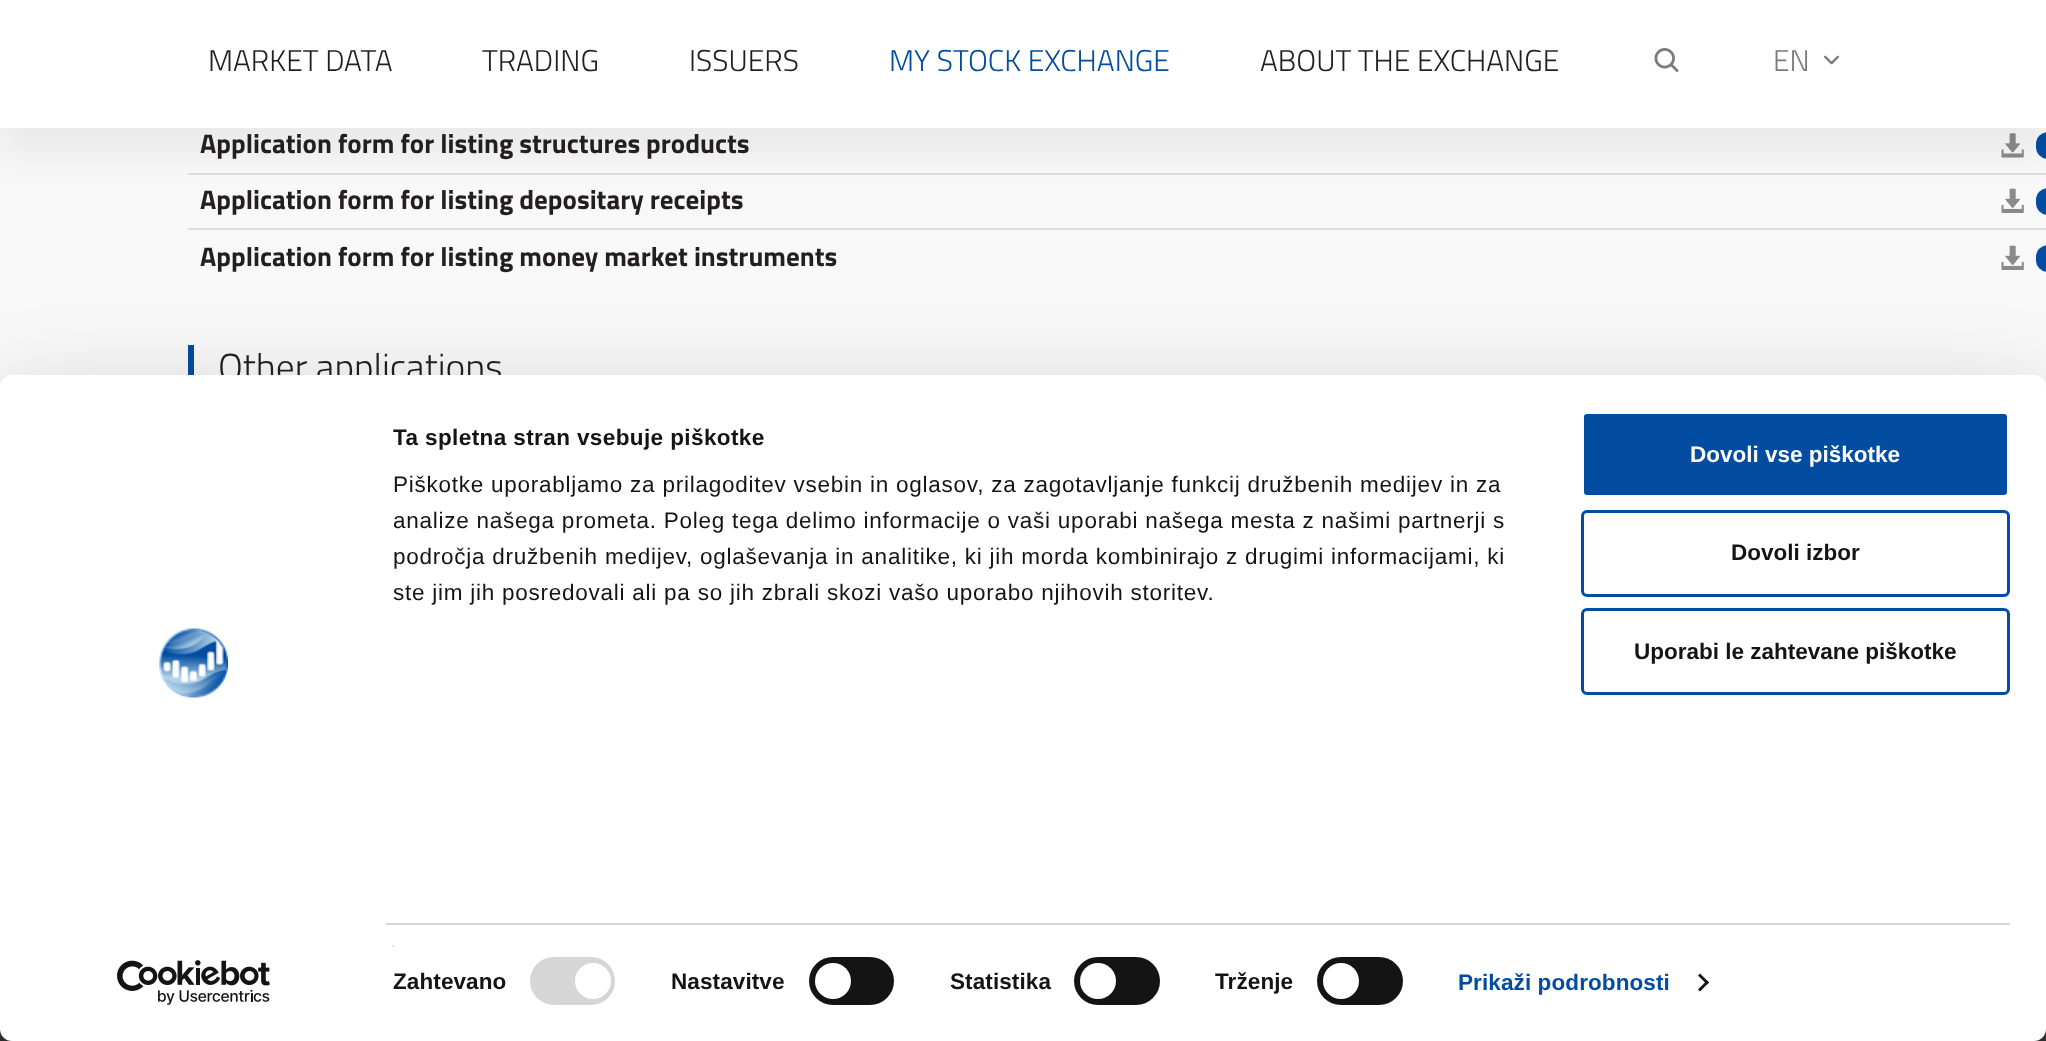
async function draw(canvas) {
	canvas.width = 2046;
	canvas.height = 1041;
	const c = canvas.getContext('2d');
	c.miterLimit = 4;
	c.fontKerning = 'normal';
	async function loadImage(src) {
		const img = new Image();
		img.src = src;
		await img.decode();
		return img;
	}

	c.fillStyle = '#f8f8f8';
	c.fillRect(0, 0, 2046, 1041);
	c.drawImage(await loadImage('img3.png'), 2001, 133, 23, 25);
	c.fillStyle = '#024da1';
	c.beginPath();
	c.roundRect(2036, 132, 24, 27, 13.5);
	c.fill();
	c.fillStyle = '#ddd';
	c.fillRect(188, 173, 1858, 2);
	c.drawImage(await loadImage('img4.png'), 2001, 188, 23, 25);
	c.fillStyle = '#024da1';
	c.beginPath();
	c.roundRect(2036, 188, 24, 27, 13.5);
	c.fill();
	c.fillStyle = '#0000000d';
	c.filter = 'blur(15px)';
	c.beginPath();
	c.rect(0, 30, 2046, 128);
	c.fill();
	c.filter = 'none';
	c.fillStyle = '#fff';
	c.fillRect(0, 0, 2046, 128);
	c.font = '300 30px Titillium Web';
	c.fillStyle = '#231f20';
	for (const [text, x, y] of [
		['MARKET DATA', 208, 71],
		['TRADING', 482, 71],
		['ISSUERS', 689, 71],
	]) {
		c.fillText(text, x, y);
	}
	c.fillStyle = '#024da1';
	c.fillText('MY STOCK EXCHANGE', 889, 71);
	c.fillStyle = '#231f20';
	c.fillText('ABOUT THE EXCHANGE', 1260, 71);
	c.drawImage(await loadImage('img1.png'), 1654, 48, 25, 24);
	c.fillStyle = '#777c82';
	c.fillText('EN', 1773, 71);
	c.drawImage(await loadImage('img2.png'), 1824, 55, 15, 10);
	c.font = 'bold 27px Titillium Web';
	c.fillStyle = '#231f20';
	c.fillText('Application form for listing structures products', 200, 153);
	c.fillText('Application form for listing depositary receipts', 200, 209);
	c.fillStyle = '#ddd';
	c.fillRect(188, 228, 1858, 2);
	c.drawImage(await loadImage('img4.png'), 2001, 245, 23, 25);
	c.fillStyle = '#024da1';
	c.beginPath();
	c.roundRect(2036, 245, 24, 27, 13.5);
	c.fill();
	c.fillStyle = '#231f20';
	c.fillText('Application form for listing money market instruments', 200, 266);
	c.fillStyle = '#024da1';
	c.fillRect(188, 345, 6, 30);
	c.font = '300 37.5px Titillium Web';
	c.fillStyle = '#231f20';
	c.fillText('Other applications', 218, 380);
	c.fillStyle = '#363336';
	c.fillRect(0, 1029, 2046, 12);
	c.fillStyle = '#0000004d';
	c.filter = 'blur(52.5px)';
	c.beginPath();
	c.roundRect(0, 420, 2046, 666, 12);
	c.fill();
	c.filter = 'none';
	c.fillStyle = '#fff';
	c.beginPath();
	c.roundRect(0, 375, 2046, 666, 12);
	c.fill();
	c.letterSpacing = '0.4px';
	c.font = 'bold 22.5px Liberation Sans';
	c.fillStyle = '#141414';
	c.fillText('Ta spletna stran vsebuje piškotke', 393, 445);
	c.letterSpacing = '0.75px';
	c.font = '22.5px Liberation Sans';
	for (const [text, x, y] of [
		['Piškotke uporabljamo za prilagoditev vsebin in oglasov, za zagotavljanje funkcij družbenih medijev in za', 393, 492],
		['analize našega prometa. Poleg tega delimo informacije o vaši uporabi našega mesta z našimi partnerji s', 393, 528],
		['področja družbenih medijev, oglaševanja in analitike, ki jih morda kombinirajo z drugimi informacijami, ki', 393, 564],
		['ste jim jih posredovali ali pa so jih zbrali skozi vašo uporabo njihovih storitev.', 393, 600],
	]) {
		c.fillText(text, x, y);
	}
	c.fillStyle = '#d6d6d6';
	c.fillRect(386, 923, 1624, 2);
	c.fillStyle = '#e5e5e5';
	c.fillRect(392, 945, 2, 2);
	c.letterSpacing = '0.1px';
	c.font = 'bold 22.5px Liberation Sans';
	c.fillStyle = '#141414';
	c.fillText('Zahtevano', 393, 989);
	c.fillStyle = '#d6d6d6';
	c.beginPath();
	c.roundRect(530, 957, 85, 48, 24);
	c.fill();
	c.fillStyle = '#fff';
	c.beginPath();
	c.arc(593, 981, 18, 0, 2 * Math.PI);
	c.fill();
	c.fillStyle = '#141414';
	c.fillText('Nastavitve', 671, 989);
	c.beginPath();
	c.roundRect(809, 957, 85, 48, 24);
	c.fill();
	c.fillStyle = '#fff';
	c.beginPath();
	c.arc(833, 981, 18, 0, 2 * Math.PI);
	c.fill();
	c.fillStyle = '#141414';
	c.fillText('Statistika', 950, 989);
	c.beginPath();
	c.roundRect(1074, 957, 86, 48, 24);
	c.fill();
	c.fillStyle = '#fff';
	c.beginPath();
	c.arc(1098, 981, 18, 0, 2 * Math.PI);
	c.fill();
	c.fillStyle = '#141414';
	c.fillText('Trženje', 1215, 989);
	c.beginPath();
	c.roundRect(1317, 957, 86, 48, 24);
	c.fill();
	c.fillStyle = '#fff';
	c.beginPath();
	c.arc(1341, 981, 18, 0, 2 * Math.PI);
	c.fill();
	c.fillStyle = '#024da1';
	c.fillText('Prikaži podrobnosti', 1458, 990);
	c.fillStyle = '#141414';
	c.beginPath();
	c.moveTo(1700, 973.5);
	c.lineTo(1709, 982.5);
	c.lineTo(1707, 984.5);
	c.lineTo(1698, 975.5);
	c.closePath();
	c.fill();
	c.beginPath();
	c.moveTo(1707, 980.5);
	c.lineTo(1709, 982.5);
	c.lineTo(1700, 991.5);
	c.lineTo(1698, 989.5);
	c.closePath();
	c.fill();
	c.fillStyle = '#024da1';
	c.beginPath();
	c.roundRect(1582.5, 412.5, 426, 84, 4.5);
	c.fill();
	c.strokeStyle = '#fff';
	c.lineWidth = 3;
	c.stroke();
	c.letterSpacing = '0px';
	c.fillStyle = '#fff';
	c.fillText('Dovoli vse piškotke', 1690, 462);
	c.beginPath();
	c.roundRect(1582.5, 511.5, 426, 84, 4.5);
	c.strokeStyle = '#024da1';
	c.stroke();
	c.fillStyle = '#141414';
	c.fillText('Dovoli izbor', 1731, 560);
	c.beginPath();
	c.roundRect(1582.5, 609.5, 426, 84, 4.5);
	c.stroke();
	c.fillText('Uporabi le zahtevane piškotke', 1634, 659);
	c.drawImage(await loadImage('img5.png'), 159, 628, 69, 70);
	c.drawImage(await loadImage('img6.png'), 117, 960, 153, 45);
}

draw(document.querySelector('canvas'));
